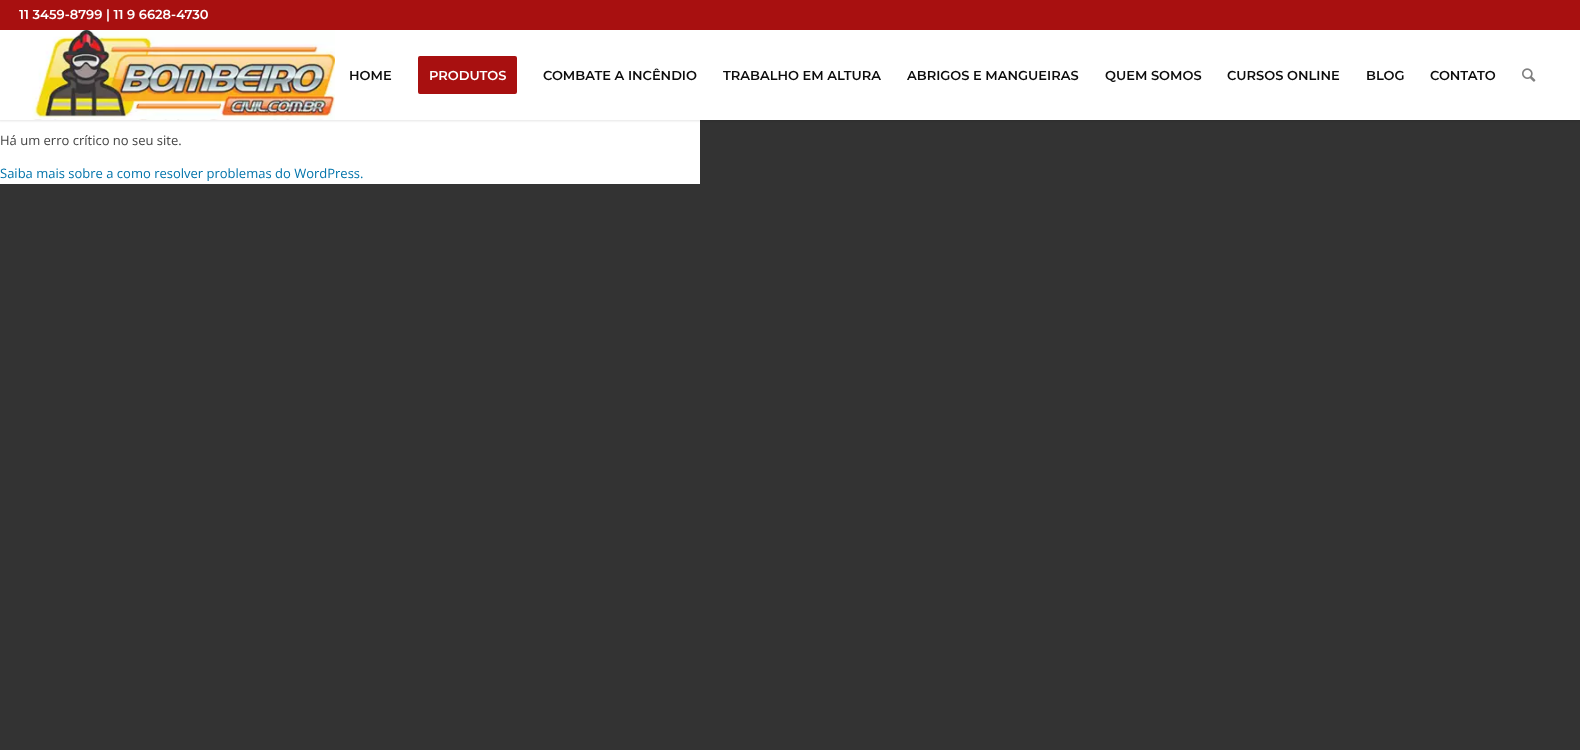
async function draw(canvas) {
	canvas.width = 1580;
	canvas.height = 750;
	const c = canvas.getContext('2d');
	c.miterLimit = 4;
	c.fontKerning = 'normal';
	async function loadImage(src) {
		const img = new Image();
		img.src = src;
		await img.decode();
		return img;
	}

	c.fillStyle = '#333';
	c.fillRect(0, 0, 1580, 750);
	c.fillStyle = '#fff';
	c.fillRect(0, 120, 700, 64);
	c.fillStyle = '#0000001a';
	c.filter = 'blur(1px)';
	c.beginPath();
	c.rect(-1, -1, 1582, 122);
	c.fill();
	c.filter = 'none';
	c.fillStyle = '#a81010';
	c.fillRect(0, 0, 1580, 30);
	c.font = '600 13px Montserrat';
	c.fillStyle = '#fff';
	c.fillText('11 3459-8799 | 11 9 6628-4730', 19, 19);
	c.fillRect(0, 30, 1580, 90);
	c.drawImage(await loadImage('img1.png'), 32, 30, 303, 90);
	c.fillStyle = '#0c0c0c';
	c.fillText('HOME', 349, 80);
	c.fillStyle = '#a81010';
	c.beginPath();
	c.roundRect(419, 57, 97, 36, 1);
	c.fill();
	c.strokeStyle = '#a81010';
	c.lineWidth = 2;
	c.stroke();
	c.fillStyle = '#fff';
	c.fillText('PRODUTOS', 429, 80);
	c.fillStyle = '#0c0c0c';
	for (const [text, x, y] of [
		['COMBATE A INCÊNDIO', 543, 80],
		['TRABALHO EM ALTURA', 723, 80],
		['ABRIGOS E MANGUEIRAS', 907, 80],
		['QUEM SOMOS', 1105, 80],
		['CURSOS ONLINE', 1227, 80],
		['BLOG', 1366, 80],
		['CONTATO', 1430, 80],
	]) {
		c.fillText(text, x, y);
	}
	c.drawImage(await loadImage('img2.png'), 1522, 68, 14, 14);
	c.font = '13px Open Sans';
	c.fillStyle = '#444';
	c.fillText('Há um erro crítico no seu site.', 0, 145);
	c.fillStyle = '#0073aa';
	c.fillText('Saiba mais sobre a como resolver problemas do WordPress.', 0, 178);
}

draw(document.querySelector('canvas'));
